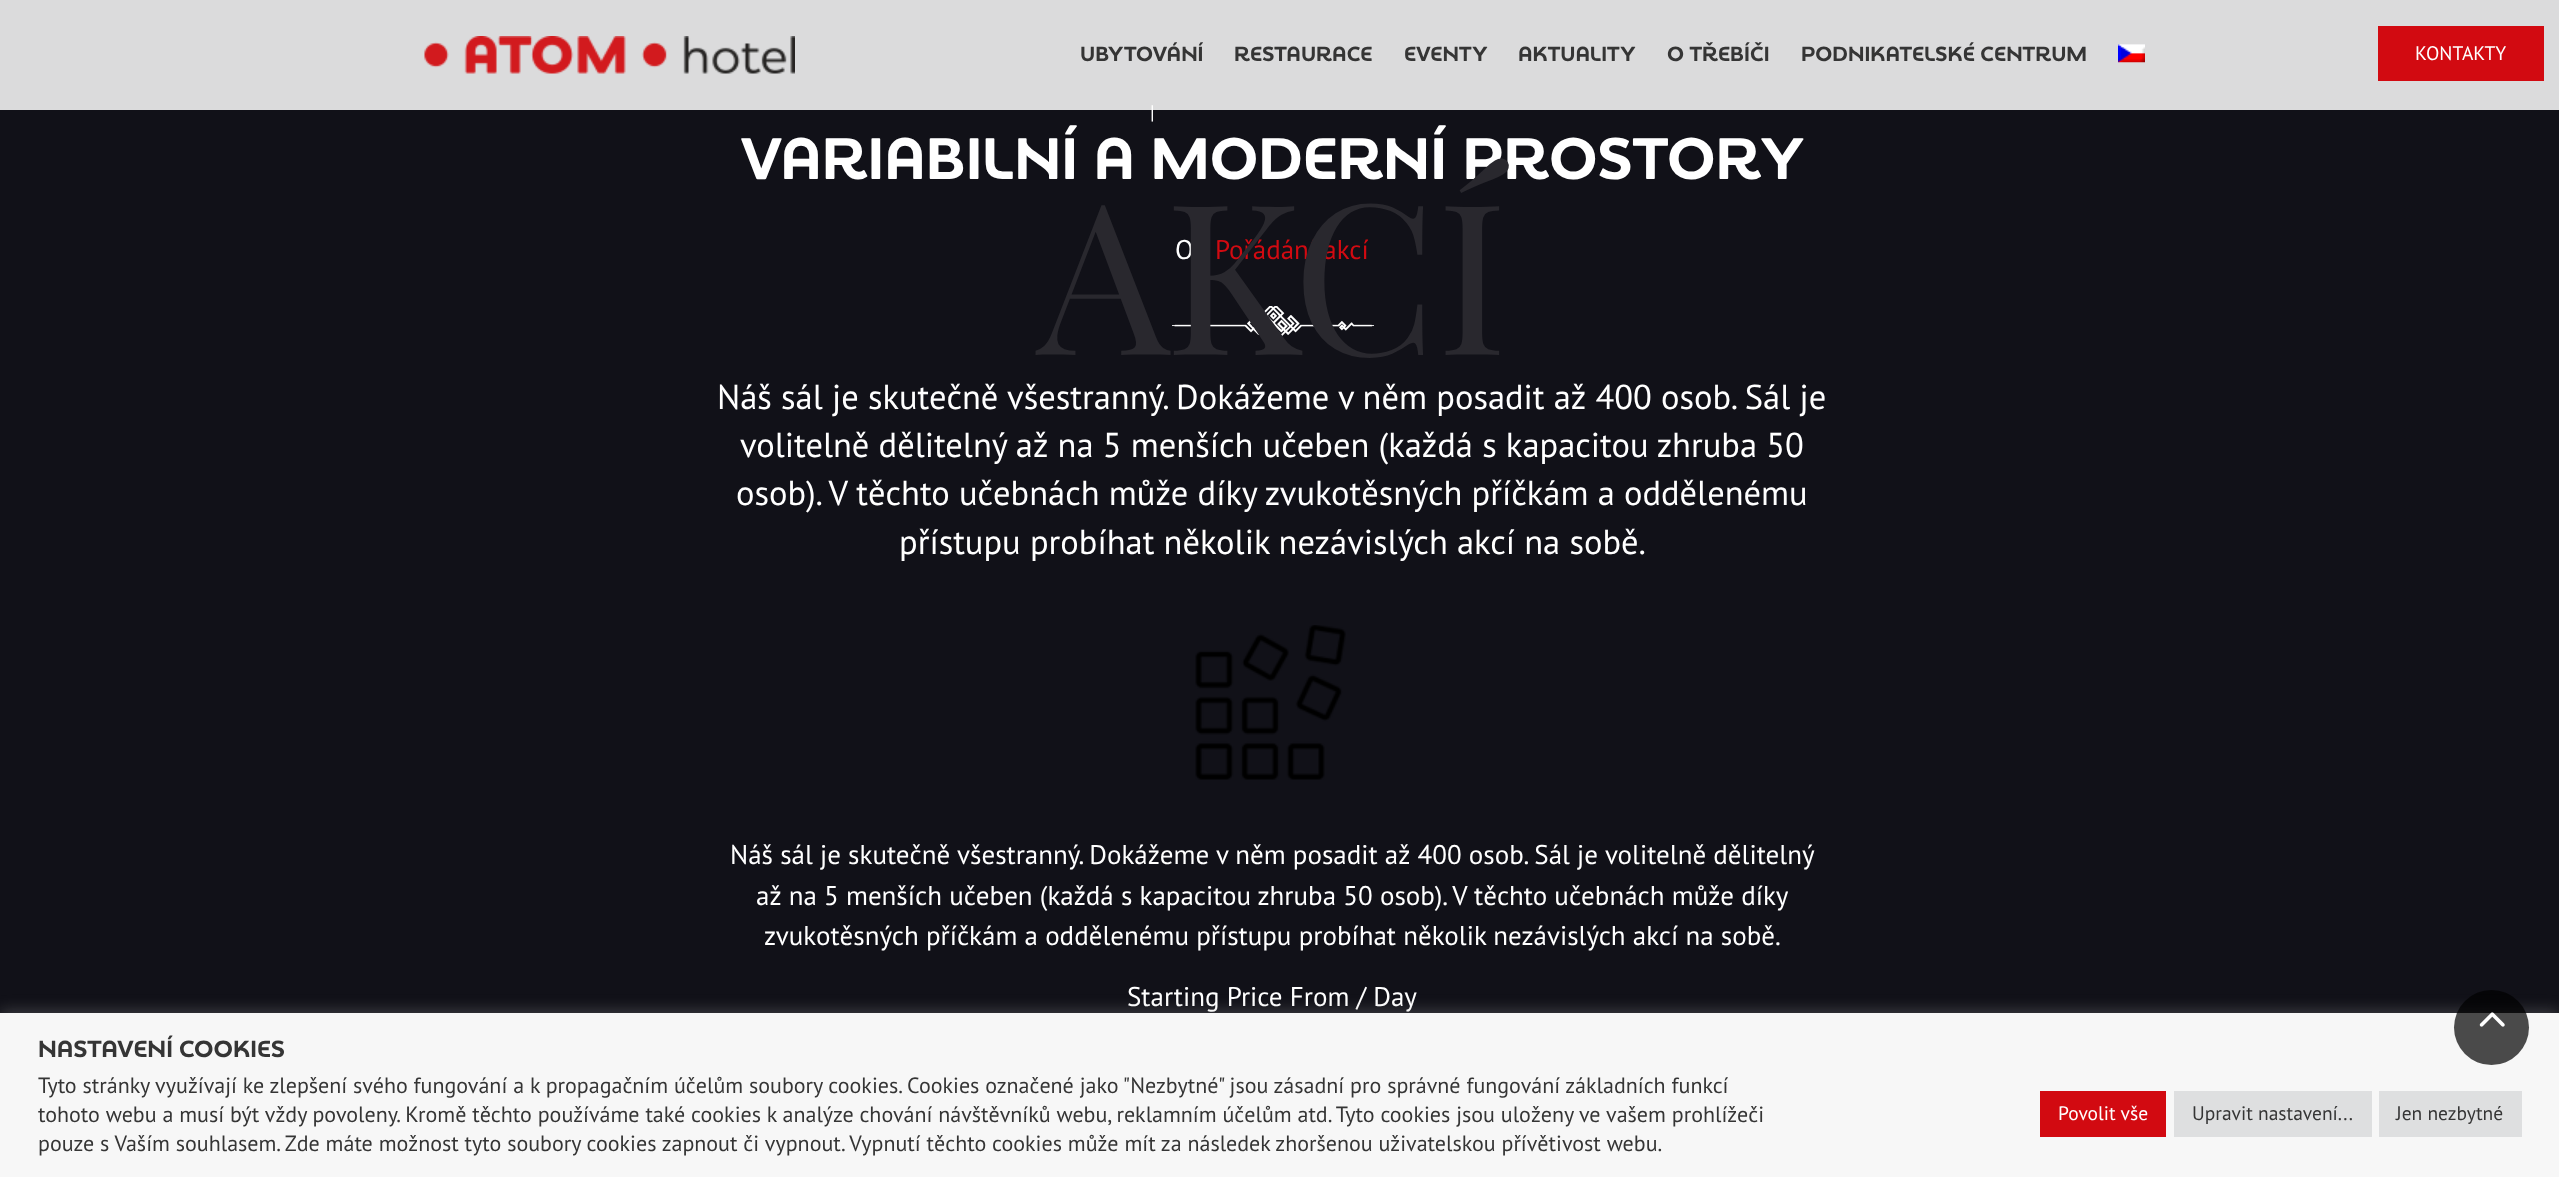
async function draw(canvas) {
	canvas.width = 2559;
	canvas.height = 1177;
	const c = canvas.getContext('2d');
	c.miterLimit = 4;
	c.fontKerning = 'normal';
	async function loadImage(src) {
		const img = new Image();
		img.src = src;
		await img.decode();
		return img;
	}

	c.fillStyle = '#111118';
	c.fillRect(0, 0, 2559, 1177);
	c.font = '19.5px PT Sans';
	c.fillStyle = '#fff';
	c.fillText('|', 1150, 119);
	c.fillStyle = '#ffffffd9';
	c.fillRect(0, 0, 2559, 110);
	c.drawImage(await loadImage('img1.png'), 424, 36, 371, 38);
	c.font = 'bold 21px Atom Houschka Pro';
	c.fillStyle = '#353535';
	for (const [text, x, y] of [
		['UBYTOVÁNÍ', 1080, 61],
		['RESTAURACE', 1234, 61],
		['EVENTY', 1404, 61],
		['AKTUALITY', 1518, 61],
		['O TŘEBÍČI', 1667, 61],
		['PODNIKATELSKÉ CENTRUM', 1801, 61],
	]) {
		c.fillText(text, x, y);
	}
	c.drawImage(await loadImage('img2.png'), 2118, 44, 27, 19);
	c.fillStyle = '#d20a11';
	c.fillRect(2378, 26, 166, 55);
	c.font = '19.5px PT Sans';
	c.fillStyle = '#fff';
	c.fillText('KONTAKTY', 2415, 60);
	c.font = 'bold 60px Atom Houschka Pro';
	c.fillText('VARIABILNÍ A MODERNÍ PROSTORY', 741, 179);
	c.font = '27px PT Sans';
	c.fillText('On', 1175, 259);
	c.fillStyle = '#d20a11';
	c.fillText('Pořádání akcí', 1215, 259);
	c.drawImage(await loadImage('img3.png'), 1172, 306, 202, 38);
	c.font = '210px Playfair Display';
	c.fillStyle = '#29282e';
	c.fillText('AKCÍ', 1037, 355);
	c.font = '34.5px PT Sans';
	c.fillStyle = '#fff';
	for (const [text, x, y] of [
		['Náš sál je skutečně všestranný. Dokážeme v něm posadit až 400 osob. Sál je', 717, 409],
		['volitelně dělitelný až na 5 menších učeben (každá s kapacitou zhruba 50', 740, 457],
		['osob). V těchto učebnách může díky zvukotěsných příčkám a oddělenému', 736, 505],
		['přístupu probíhat několik nezávislých akcí na sobě.', 899, 554],
	]) {
		c.fillText(text, x, y);
	}
	c.drawImage(await loadImage('img4.png'), 1195, 625, 151, 155);
	c.font = '27px PT Sans';
	for (const [text, x, y] of [
		['Náš sál je skutečně všestranný. Dokážeme v něm posadit až 400 osob. Sál je volitelně dělitelný', 730, 864],
		['až na 5 menších učeben (každá s kapacitou zhruba 50 osob). V těchto učebnách může díky', 756, 905],
		['zvukotěsných příčkám a oddělenému přístupu probíhat několik nezávislých akcí na sobě.', 764, 945],
		['Starting Price From / Day', 1127, 1006],
	]) {
		c.fillText(text, x, y);
	}
	c.fillStyle = '#acabab4d';
	c.filter = 'blur(7.5px)';
	c.beginPath();
	c.rect(0, 1011, 2559, 165);
	c.fill();
	c.filter = 'none';
	c.fillStyle = '#f7f7f7';
	c.fillRect(0, 1013, 2559, 164);
	c.fillStyle = '#000000b3';
	c.beginPath();
	c.arc(2491.5, 1027.5, 37.5, 0, 2 * Math.PI);
	c.fill();
	c.drawImage(await loadImage('img5.png'), 2479, 1012, 26, 15);
	c.font = 'bold 24px Atom Houschka Pro';
	c.fillStyle = '#353535';
	c.fillText('NASTAVENÍ COOKIES', 38, 1057);
	c.font = '22px PT Sans';
	for (const [text, x, y] of [
		['Tyto stránky využívají ke zlepšení svého fungování a k propagačním účelům soubory cookies. Cookies označené jako "Nezbytné" jsou zásadní pro správné fungování základních funkcí', 38, 1093],
		['tohoto webu a musí být vždy povoleny. Kromě těchto používáme také cookies k analýze chování návštěvníků webu, reklamním účelům atd. Tyto cookies jsou uloženy ve vašem prohlížeči', 38, 1122],
		['pouze s Vaším souhlasem. Zde máte možnost tyto soubory cookies zapnout či vypnout. Vypnutí těchto cookies může mít za následek zhoršenou uživatelskou přívětivost webu.', 38, 1151],
	]) {
		c.fillText(text, x, y);
	}
	c.fillStyle = '#d20a11';
	c.fillRect(2040, 1091, 126, 46);
	c.font = '19.5px PT Sans';
	c.fillStyle = '#fff';
	c.fillText('Povolit vše', 2058, 1120);
	c.fillStyle = '#dedfe0';
	c.fillRect(2174, 1091, 198, 46);
	c.fillStyle = '#353535';
	c.fillText('Upravit nastavení...', 2192, 1120);
	c.fillStyle = '#dedfe0';
	c.fillRect(2379, 1091, 143, 46);
	c.fillStyle = '#353535';
	c.fillText('Jen nezbytné', 2396, 1120);
}

draw(document.querySelector('canvas'));
